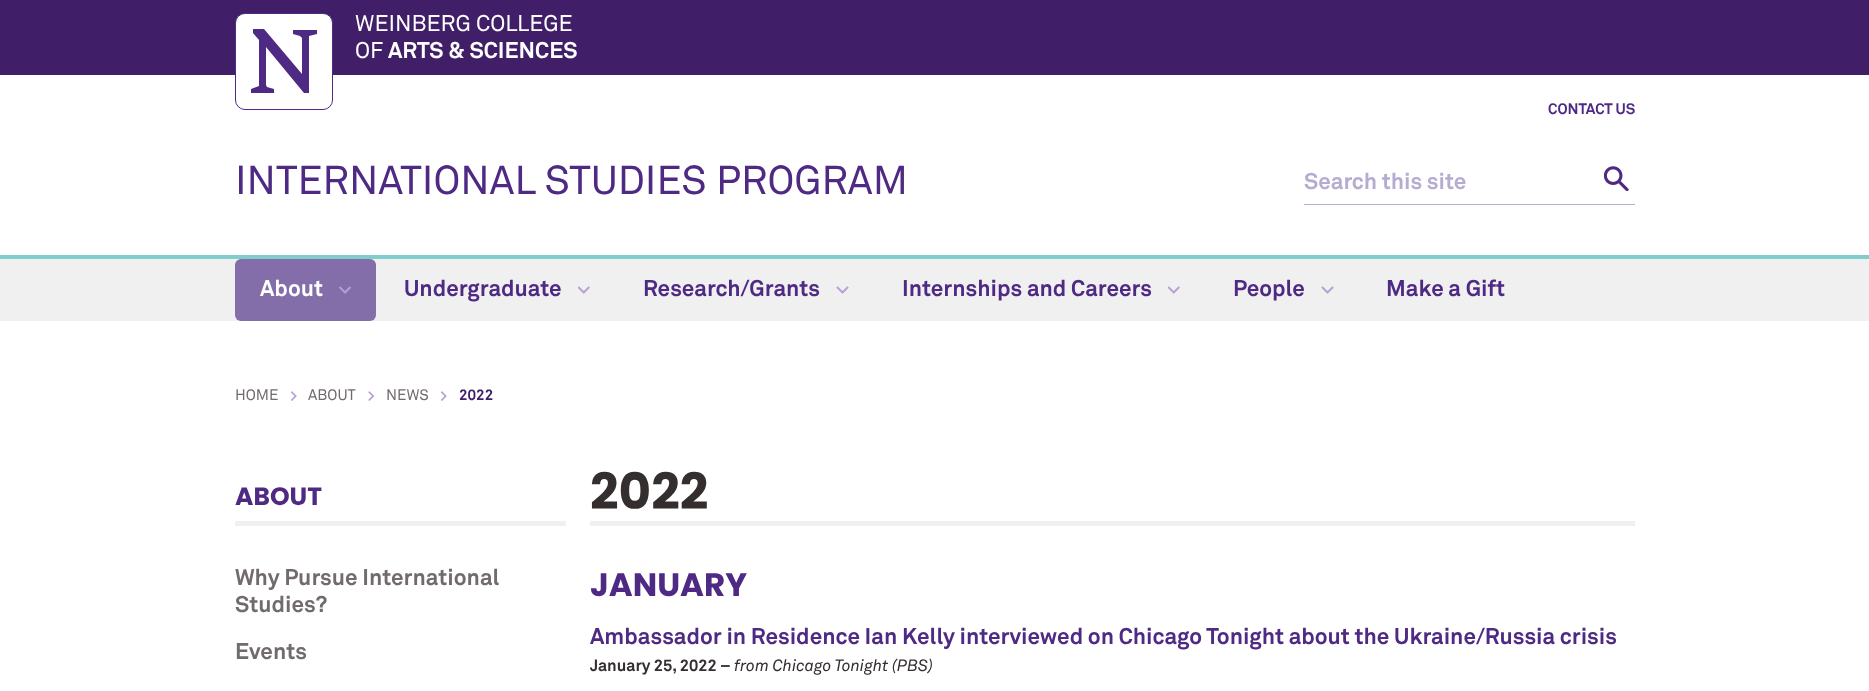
async function draw(canvas) {
	canvas.width = 1869;
	canvas.height = 691;
	const c = canvas.getContext('2d');
	c.miterLimit = 4;
	c.fontKerning = 'normal';
	async function loadImage(src) {
		const img = new Image();
		img.src = src;
		await img.decode();
		return img;
	}

	c.fillStyle = '#fff';
	c.fillRect(0, 0, 1869, 691);
	c.fillStyle = '#401f68';
	c.fillRect(0, 0, 1869, 75);
	c.fillStyle = '#fff';
	c.beginPath();
	c.roundRect(235.5, 13.5, 97, 96, 9.5);
	c.fill();
	c.strokeStyle = '#4e2a84';
	c.stroke();
	c.fillStyle = '#4e2a84';
	c.beginPath();
	c.moveTo(293, 30);
	c.lineTo(293, 34);
	c.lineTo(300, 36);
	c.lineTo(302, 38);
	c.lineTo(302, 74);
	c.lineTo(264, 29);
	c.lineTo(253, 29);
	c.lineTo(253, 33);
	c.lineTo(259, 40);
	c.lineTo(259, 86);
	c.lineTo(251, 89);
	c.lineTo(251, 93);
	c.lineTo(274, 93);
	c.lineTo(274, 89);
	c.lineTo(267, 87);
	c.lineTo(266, 85);
	c.lineTo(266, 47);
	c.lineTo(304, 93);
	c.lineTo(309, 93);
	c.lineTo(309, 36);
	c.lineTo(317, 34);
	c.lineTo(317, 30);
	c.closePath();
	c.fill();
	c.font = '22.5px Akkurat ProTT';
	c.fillStyle = '#fff';
	c.fillText('WEINBERG COLLEGE', 355, 31);
	c.fillText('OF', 355, 58);
	c.font = 'bold 22.5px Akkurat ProTT';
	c.fillText('ARTS & SCIENCES', 388, 58);
	c.font = 'bold 15px Akkurat ProTT';
	c.fillStyle = '#4e2a84';
	c.fillText('CONTACT US', 1548, 114);
	c.font = '40px Akkurat ProTT';
	c.fillText('INTERNATIONAL STUDIES PROGRAM', 235, 194);
	c.fillStyle = '#b6acd1';
	c.fillRect(1304, 204, 331, 1);
	c.font = 'bold 22.5px Akkurat ProTT';
	c.fillText('Search this site', 1304, 189);
	c.drawImage(await loadImage('img1.png'), 1604, 166, 25, 25);
	c.fillStyle = '#f0f0f0';
	c.fillRect(0, 259, 1869, 62);
	c.fillStyle = '#7fcecd';
	c.fillRect(0, 255, 1869, 4);
	c.fillStyle = '#836eaa';
	c.beginPath();
	c.roundRect(235, 259, 141, 62, 6);
	c.fill();
	c.fillStyle = '#fff';
	c.fillText('About', 260, 296);
	c.drawImage(await loadImage('img2.png'), 339, 286, 12, 8);
	c.fillStyle = '#4e2a84';
	c.fillText('Undergraduate', 404, 296);
	c.drawImage(await loadImage('img3.png'), 578, 286, 12, 8);
	c.fillText('Research/Grants', 643, 296);
	c.drawImage(await loadImage('img4.png'), 836, 286, 13, 8);
	c.fillText('Internships and Careers', 902, 296);
	c.drawImage(await loadImage('img3.png'), 1168, 286, 12, 8);
	c.fillText('People', 1233, 296);
	c.drawImage(await loadImage('img4.png'), 1321, 286, 13, 8);
	c.fillText('Make a Gift', 1386, 296);
	c.font = '15px Akkurat ProTT';
	c.fillStyle = '#716c6b';
	c.fillText('HOME', 235, 400);
	c.drawImage(await loadImage('img5.png'), 290, 391, 7, 10);
	c.fillText('ABOUT', 308, 400);
	c.drawImage(await loadImage('img6.png'), 368, 391, 7, 10);
	c.fillText('NEWS', 386, 400);
	c.drawImage(await loadImage('img5.png'), 440, 391, 7, 10);
	c.font = 'bold 15px Akkurat ProTT';
	c.fillStyle = '#401f68';
	c.fillText('2022', 459, 400);
	c.fillStyle = '#f0f0f0';
	c.fillRect(235, 521, 331, 5);
	c.font = 'bold 25px Poppins';
	c.fillStyle = '#4e2a84';
	c.fillText('ABOUT', 235, 505);
	c.font = 'bold 22.5px Akkurat ProTT';
	c.fillStyle = '#716c6b';
	for (const [text, x, y] of [
		['Why Pursue International', 235, 585],
		['Studies?', 235, 612],
		['Events', 235, 659],
	]) {
		c.fillText(text, x, y);
	}
	c.fillStyle = '#f0f0f0';
	c.fillRect(590, 521, 1045, 5);
	c.font = 'bold 50px Poppins';
	c.fillStyle = '#342f2e';
	c.fillText('2022', 590, 509);
	c.font = 'bold 32.5px Poppins';
	c.fillStyle = '#4e2a84';
	c.fillText('JANUARY', 590, 596);
	c.font = 'bold 22.5px Akkurat ProTT';
	c.fillText('Ambassador in Residence Ian Kelly interviewed on Chicago Tonight about the Ukraine/Russia crisis', 590, 644);
	c.font = 'bold 16.25px Akkurat ProTT';
	c.fillStyle = '#342f2e';
	c.fillText('January 25, 2022 –', 590, 671);
	c.font = 'italic 16.25px Akkurat ProTT';
	c.fillText('from Chicago Tonight (PBS)', 734, 671);
}

draw(document.querySelector('canvas'));
